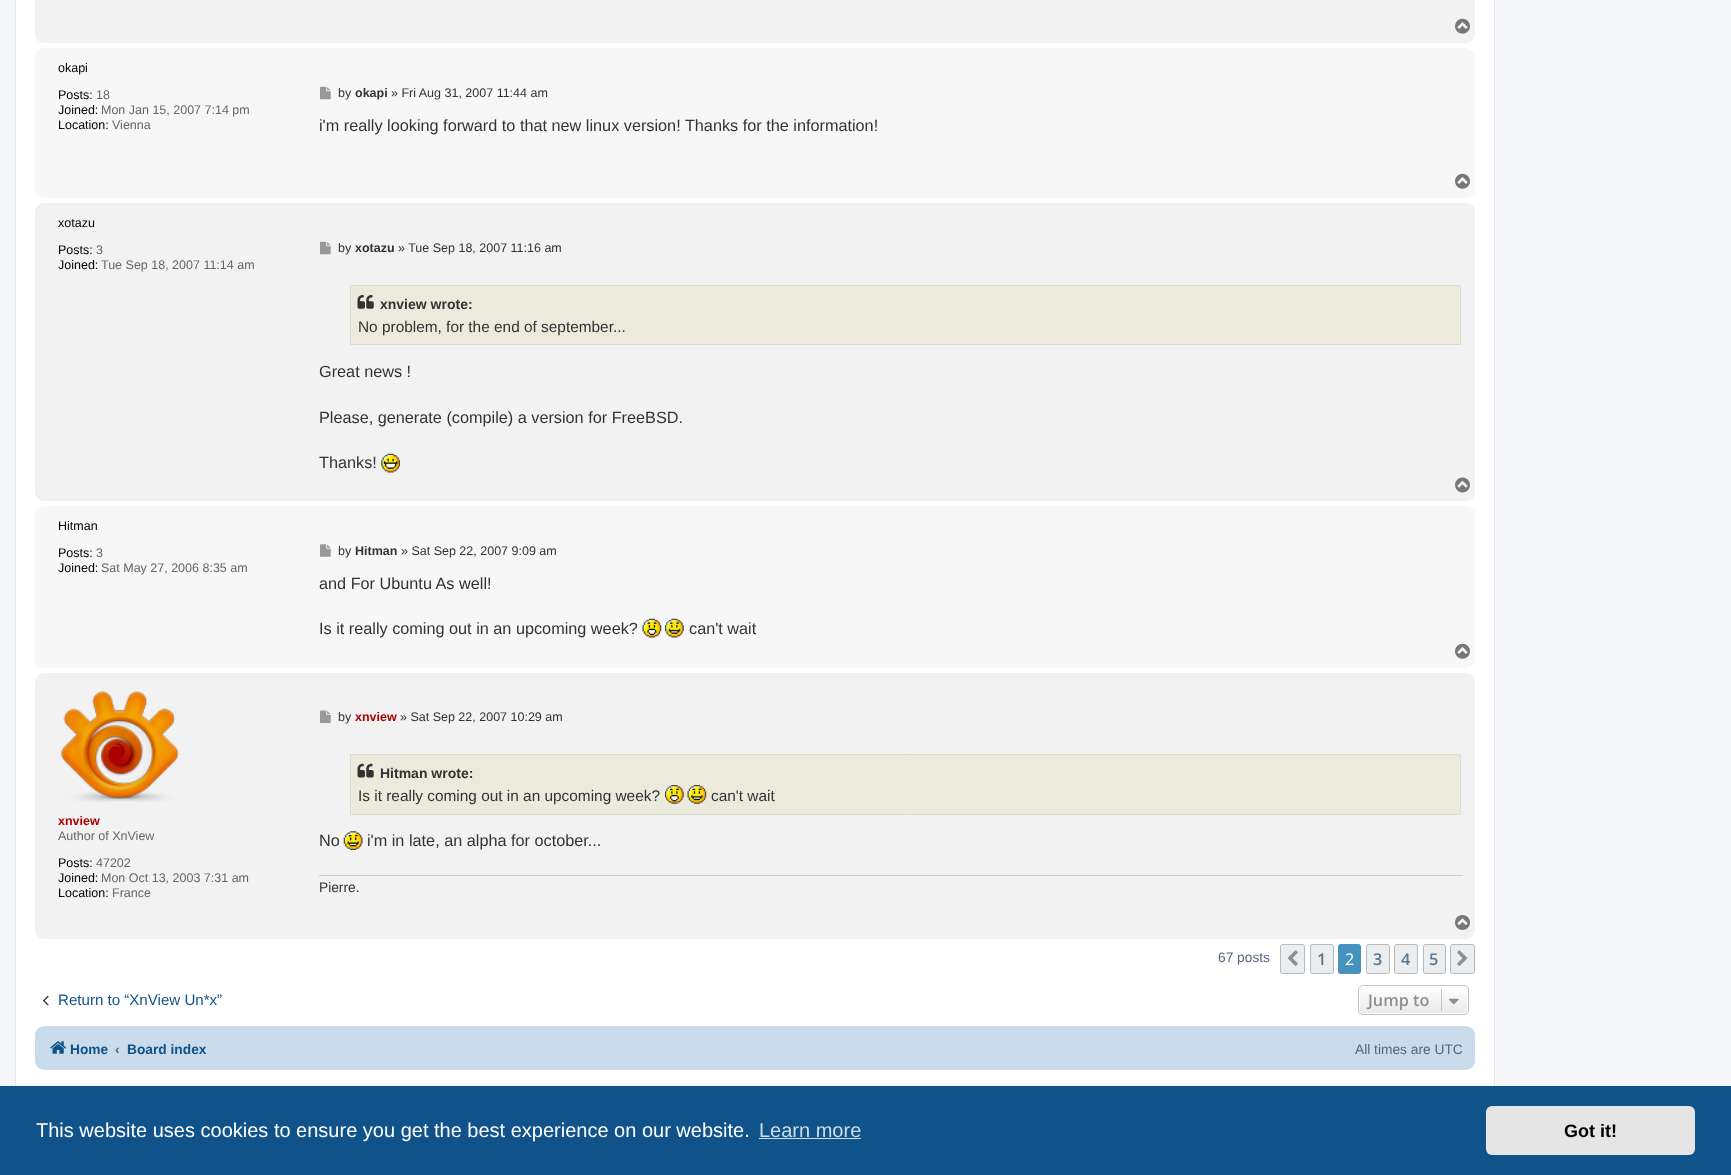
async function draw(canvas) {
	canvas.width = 1731;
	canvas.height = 1175;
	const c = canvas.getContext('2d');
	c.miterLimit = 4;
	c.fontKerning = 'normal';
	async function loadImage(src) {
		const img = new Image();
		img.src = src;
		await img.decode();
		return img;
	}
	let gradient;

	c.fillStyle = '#f5f7fa';
	c.fillRect(0, 0, 1731, 1175);
	c.fillStyle = '#fff';
	c.fillRect(16, 0, 1478, 1086);
	c.strokeStyle = '#e6e9ed';
	c.strokeRect(15.5, -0.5, 1479, 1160);
	c.fillStyle = '#f2f2f2';
	c.beginPath();
	c.roundRect(35, -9, 1440, 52, 9);
	c.fill();
	c.drawImage(await loadImage('img1.png'), 1455, 18, 15, 16);
	c.fillStyle = '#f7f7f7';
	c.beginPath();
	c.roundRect(35, 48, 1440, 150, 9);
	c.fill();
	c.font = '12.5px Liberation Sans';
	c.fillStyle = '#000';
	c.fillText('okapi', 58, 72);
	c.fillText('Posts:', 58, 99);
	c.fillStyle = '#666';
	c.fillText('18', 96, 99);
	c.fillStyle = '#000';
	c.fillText('Joined:', 58, 114);
	c.fillStyle = '#666';
	c.fillText('Mon Jan 15, 2007 7:14 pm', 101, 114);
	c.fillStyle = '#000';
	c.fillText('Location:', 58, 129);
	c.fillStyle = '#666';
	c.fillText('Vienna', 112, 129);
	c.drawImage(await loadImage('img2.png'), 320, 86, 11, 14);
	c.fillStyle = '#333';
	c.fillText('by', 338, 97);
	c.font = 'bold 12.5px Liberation Sans';
	c.fillText('okapi', 355, 97);
	c.font = '12.5px Liberation Sans';
	c.fillText('» Fri Aug 31, 2007 11:44 am', 391, 97);
	c.font = '16.25px Liberation Sans';
	c.fillText('i\'m really looking forward to that new linux version! Thanks for the information!', 319, 131);
	c.drawImage(await loadImage('img3.png'), 1455, 173, 15, 16);
	c.fillStyle = '#f2f2f2';
	c.beginPath();
	c.roundRect(35, 203, 1440, 298, 9);
	c.fill();
	c.font = '12.5px Liberation Sans';
	c.fillStyle = '#000';
	c.fillText('xotazu', 58, 227);
	c.fillText('Posts:', 58, 254);
	c.fillStyle = '#666';
	c.fillText('3', 96, 254);
	c.fillStyle = '#000';
	c.fillText('Joined:', 58, 269);
	c.fillStyle = '#666';
	c.fillText('Tue Sep 18, 2007 11:14 am', 101, 269);
	c.drawImage(await loadImage('img4.png'), 320, 241, 11, 14);
	c.fillStyle = '#333';
	c.fillText('by', 338, 252);
	c.font = 'bold 12.5px Liberation Sans';
	c.fillText('xotazu', 355, 252);
	c.font = '12.5px Liberation Sans';
	c.fillText('» Tue Sep 18, 2007 11:16 am', 398, 252);
	c.fillStyle = '#ebeadd';
	c.beginPath();
	c.rect(350.5, 285.5, 1110, 59);
	c.fill();
	c.strokeStyle = '#dbdbce';
	c.stroke();
	c.drawImage(await loadImage('img5.png'), 357, 295, 17, 14);
	c.font = 'bold 14px Liberation Sans';
	c.fillStyle = '#333';
	c.fillText('xnview wrote:', 380, 309);
	c.font = '15.4px Liberation Sans';
	c.fillText('No problem, for the end of september...', 358, 332);
	c.font = '16.25px Liberation Sans';
	for (const [text, x, y] of [
		['Great news !', 319, 377],
		['Please, generate (compile) a version for FreeBSD.', 319, 423],
		['Thanks!', 319, 468],
	]) {
		c.fillText(text, x, y);
	}
	c.drawImage(await loadImage('img6.png'), 381, 453, 19, 20);
	c.drawImage(await loadImage('img7.png'), 1455, 477, 15, 16);
	c.fillStyle = '#f7f7f7';
	c.beginPath();
	c.roundRect(35, 506, 1440, 162, 9);
	c.fill();
	c.font = '12.5px Liberation Sans';
	c.fillStyle = '#000';
	c.fillText('Hitman', 58, 530);
	c.fillText('Posts:', 58, 557);
	c.fillStyle = '#666';
	c.fillText('3', 96, 557);
	c.fillStyle = '#000';
	c.fillText('Joined:', 58, 572);
	c.fillStyle = '#666';
	c.fillText('Sat May 27, 2006 8:35 am', 101, 572);
	c.drawImage(await loadImage('img8.png'), 320, 544, 11, 13);
	c.fillStyle = '#333';
	c.fillText('by', 338, 555);
	c.font = 'bold 12.5px Liberation Sans';
	c.fillText('Hitman', 355, 555);
	c.font = '12.5px Liberation Sans';
	c.fillText('» Sat Sep 22, 2007 9:09 am', 401, 555);
	c.font = '16.25px Liberation Sans';
	c.fillText('and For Ubuntu As well!', 319, 589);
	c.fillText('Is it really coming out in an upcoming week?', 319, 634);
	c.drawImage(await loadImage('img9.png'), 642, 618, 20, 20);
	c.drawImage(await loadImage('img10.png'), 665, 618, 19, 20);
	c.fillText('can\'t wait', 689, 634);
	c.drawImage(await loadImage('img3.png'), 1455, 643, 15, 16);
	c.fillStyle = '#f2f2f2';
	c.beginPath();
	c.roundRect(35, 673, 1440, 266, 9);
	c.fill();
	c.drawImage(await loadImage('img11.png'), 61, 691, 118, 111);
	c.font = 'bold 12.5px Liberation Sans';
	c.fillStyle = '#a00';
	c.fillText('xnview', 58, 825);
	c.font = '12.5px Liberation Sans';
	c.fillStyle = '#666';
	c.fillText('Author of XnView', 58, 840);
	c.fillStyle = '#000';
	c.fillText('Posts:', 58, 867);
	c.fillStyle = '#666';
	c.fillText('47202', 96, 867);
	c.fillStyle = '#000';
	c.fillText('Joined:', 58, 882);
	c.fillStyle = '#666';
	c.fillText('Mon Oct 13, 2003 7:31 am', 101, 882);
	c.fillStyle = '#000';
	c.fillText('Location:', 58, 897);
	c.fillStyle = '#666';
	c.fillText('France', 112, 897);
	c.drawImage(await loadImage('img12.png'), 320, 710, 11, 14);
	c.fillStyle = '#333';
	c.fillText('by', 338, 721);
	c.font = 'bold 12.5px Liberation Sans';
	c.fillStyle = '#a00';
	c.fillText('xnview', 355, 721);
	c.font = '12.5px Liberation Sans';
	c.fillStyle = '#333';
	c.fillText('» Sat Sep 22, 2007 10:29 am', 400, 721);
	c.fillStyle = '#ebeadd';
	c.beginPath();
	c.rect(350.5, 754.5, 1110, 60);
	c.fill();
	c.stroke();
	c.drawImage(await loadImage('img13.png'), 357, 763, 17, 15);
	c.font = 'bold 14px Liberation Sans';
	c.fillStyle = '#333';
	c.fillText('Hitman wrote:', 380, 778);
	c.font = '15.4px Liberation Sans';
	c.fillText('Is it really coming out in an upcoming week?', 358, 801);
	c.drawImage(await loadImage('img14.png'), 665, 785, 19, 19);
	c.drawImage(await loadImage('img15.png'), 687, 785, 20, 19);
	c.fillText('can\'t wait', 711, 801);
	c.font = '16.25px Liberation Sans';
	c.fillText('No', 319, 846);
	c.drawImage(await loadImage('img16.png'), 343, 831, 20, 19);
	c.fillText('i\'m in late, an alpha for october...', 367, 846);
	c.fillStyle = '#ccc';
	c.fillRect(319, 875, 1144, 1);
	c.font = '13.75px Liberation Sans';
	c.fillStyle = '#333';
	c.fillText('Pierre.', 319, 892);
	c.drawImage(await loadImage('img17.png'), 1455, 915, 15, 15);
	c.fillStyle = '#536482';
	c.fillText('67 posts', 1218, 962);
	c.fillStyle = '#ecedee';
	c.beginPath();
	c.roundRect(1280.5, 944.5, 24, 29, 2);
	c.fill();
	c.strokeStyle = '#b4bac0';
	c.stroke();
	c.drawImage(await loadImage('img18.png'), 1287, 950, 11, 16);
	c.beginPath();
	c.roundRect(1310.5, 944.5, 23, 29, 2);
	c.fill();
	c.stroke();
	c.font = '600 16.25px Open Sans';
	c.fillStyle = '#5c758c';
	c.fillText('1', 1317, 965);
	c.fillStyle = '#4692bf';
	c.beginPath();
	c.roundRect(1338.5, 944.5, 22, 29, 2);
	c.fill();
	c.strokeStyle = '#4692bf';
	c.stroke();
	c.font = '16.25px Open Sans';
	c.fillStyle = '#fff';
	c.fillText('2', 1345, 965);
	c.fillStyle = '#ecedee';
	c.beginPath();
	c.roundRect(1366.5, 944.5, 23, 29, 2);
	c.fill();
	c.strokeStyle = '#b4bac0';
	c.stroke();
	c.font = '600 16.25px Open Sans';
	c.fillStyle = '#5c758c';
	c.fillText('3', 1373, 965);
	c.fillStyle = '#ecedee';
	c.beginPath();
	c.roundRect(1394.5, 944.5, 23, 29, 2);
	c.fill();
	c.stroke();
	c.fillStyle = '#5c758c';
	c.fillText('4', 1401, 965);
	c.fillStyle = '#ecedee';
	c.beginPath();
	c.roundRect(1423.5, 944.5, 22, 29, 2);
	c.fill();
	c.stroke();
	c.fillStyle = '#5c758c';
	c.fillText('5', 1429, 965);
	c.fillStyle = '#ecedee';
	c.beginPath();
	c.roundRect(1450.5, 944.5, 24, 29, 2);
	c.fill();
	c.stroke();
	c.drawImage(await loadImage('img19.png'), 1457, 950, 11, 16);
	c.drawImage(await loadImage('img20.png'), 43, 995, 6, 11);
	c.font = '15.1px Liberation Sans';
	c.fillStyle = '#105289';
	c.fillText('Return to “XnView Un*x”', 58, 1005);
	c.save();
	c.beginPath();
	c.roundRect(1358, 985, 111, 30, 5);
	c.clip();
	gradient = c.createLinearGradient(1413, 986, 1413, 1014);
	gradient.addColorStop(0, '#fff');
	gradient.addColorStop(1, '#e9e9e9');
	c.fillStyle = gradient;
	c.fillRect(1358, 986, 111, 28);
	c.restore();
	c.beginPath();
	c.roundRect(1359.5, 986.5, 108, 27, 3.5);
	c.strokeStyle = '#fff';
	c.stroke();
	c.beginPath();
	c.roundRect(1358.5, 985.5, 110, 29, 4.5);
	c.strokeStyle = '#c7c3bf';
	c.stroke();
	c.font = '600 16.25px Open Sans';
	c.fillStyle = '#8f8f8f';
	c.fillText('Jump to', 1368, 1006);
	c.fillStyle = '#c7c3bf';
	c.fillRect(1441, 989, 1, 22);
	c.drawImage(await loadImage('img21.png'), 1448, 998, 11, 7);
	c.fillStyle = '#cadceb';
	c.beginPath();
	c.roundRect(35, 1026, 1440, 44, 9);
	c.fill();
	c.drawImage(await loadImage('img22.png'), 50, 1041, 16, 13);
	c.font = 'bold 13.75px Liberation Sans';
	c.fillStyle = '#105289';
	c.fillText('Home', 70, 1054);
	c.fillStyle = '#536482';
	c.fillText('‹', 115, 1054);
	c.fillStyle = '#105289';
	c.fillText('Board index', 127, 1054);
	c.font = '13.75px Liberation Sans';
	c.fillStyle = '#536482';
	c.fillText('All times are UTC', 1355, 1054);
	c.fillStyle = '#0f538a';
	c.fillRect(0, 1086, 1731, 89);
	c.font = '20px Liberation Sans';
	c.fillStyle = '#fff';
	c.fillText('This website uses cookies to ensure you get the best experience on our website.', 36, 1137);
	c.fillStyle = '#cfdde8';
	c.fillText('Learn more', 759, 1137);
	c.fillRect(759, 1138, 102, 1);
	c.fillStyle = '#e5e5e5';
	c.beginPath();
	c.roundRect(1486, 1106, 209, 49, 6);
	c.fill();
	c.font = 'bold 18px Liberation Sans';
	c.fillStyle = '#000';
	c.fillText('Got it!', 1564, 1137);
}

draw(document.querySelector('canvas'));
